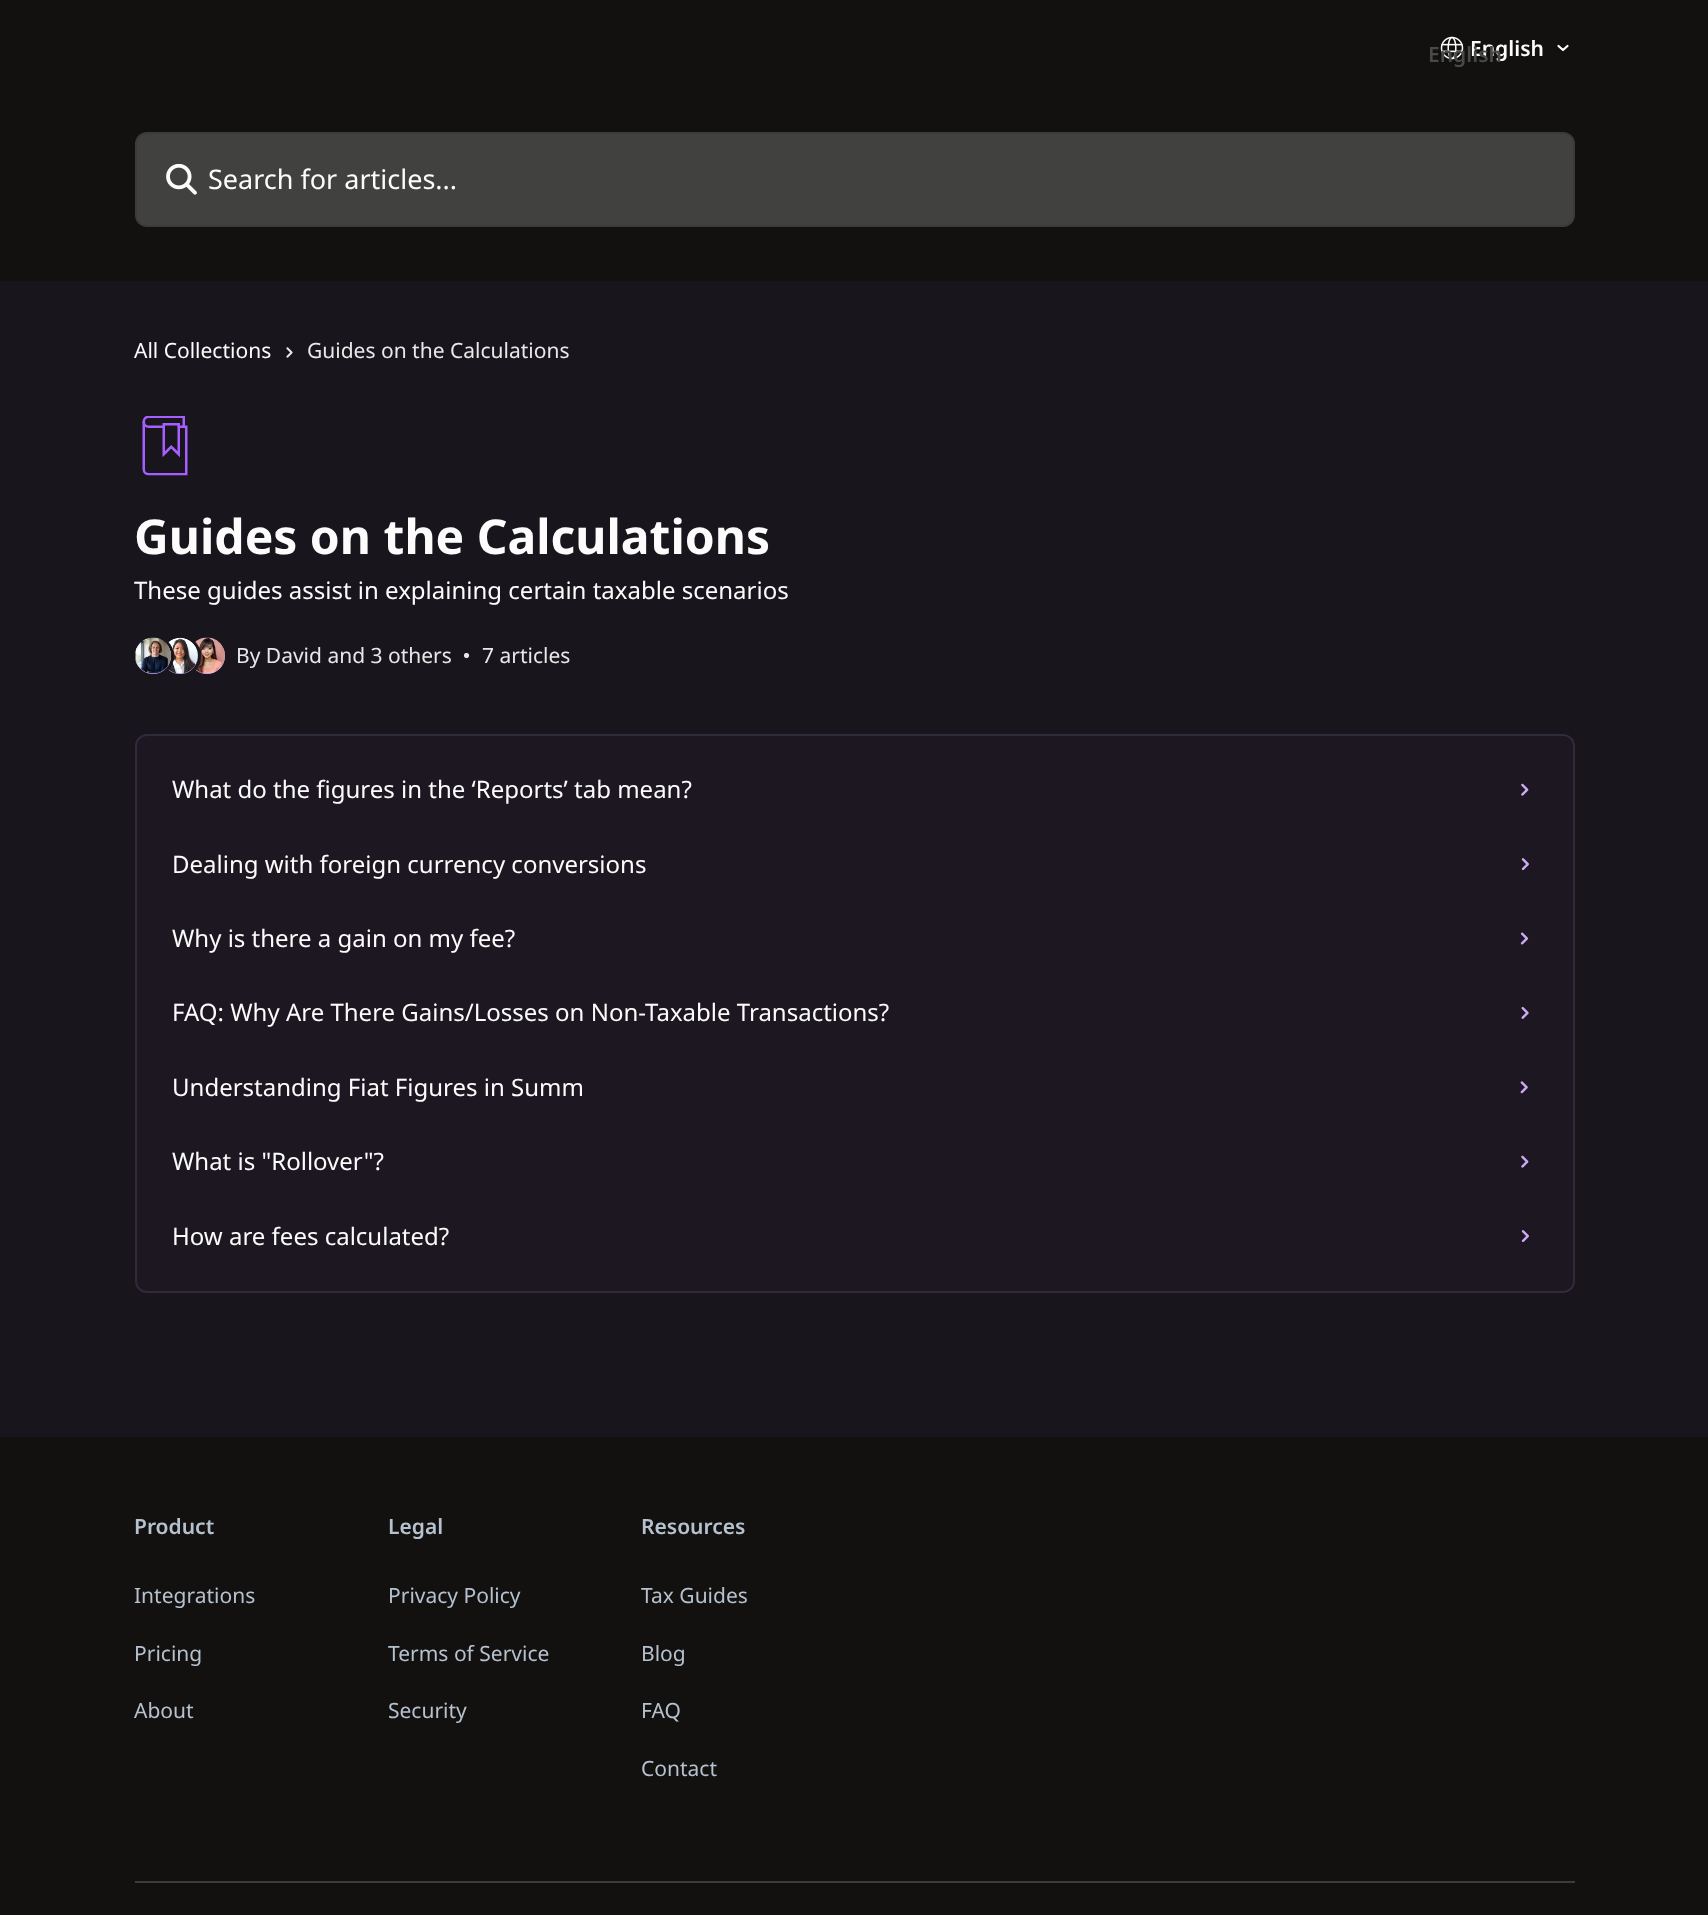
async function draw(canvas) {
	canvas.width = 1708;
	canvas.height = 1915;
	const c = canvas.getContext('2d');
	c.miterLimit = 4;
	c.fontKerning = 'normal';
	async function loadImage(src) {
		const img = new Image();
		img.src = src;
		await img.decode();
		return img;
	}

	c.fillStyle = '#19151d';
	c.fillRect(0, 0, 1708, 1915);
	c.fillStyle = '#12110f';
	c.fillRect(0, 0, 1708, 281);
	c.drawImage(await loadImage('img1.png'), 1440, 36, 24, 24);
	c.font = '600 21px Noto Sans';
	c.fillStyle = '#fcfcfc';
	c.fillText('English', 1470, 56);
	c.fillStyle = '#494947';
	c.fillText('English', 1428, 62);
	c.beginPath();
	c.moveTo(1558.5, 46);
	c.lineTo(1563, 50);
	c.lineTo(1567.5, 46);
	c.strokeStyle = '#fcfcfc';
	c.lineWidth = 2.2;
	c.lineCap = 'round';
	c.lineJoin = 'round';
	c.stroke();
	c.fillStyle = '#41413f';
	c.beginPath();
	c.roundRect(135, 132, 1440, 95, 12);
	c.fill();
	c.beginPath();
	c.roundRect(136, 133, 1438, 93, 11);
	c.strokeStyle = '#00000014';
	c.lineWidth = 2;
	c.lineJoin = 'miter';
	c.stroke();
	c.drawImage(await loadImage('img2.png'), 166, 164, 31, 31);
	c.font = '27px Noto Sans';
	c.fillStyle = '#fcfcfc';
	c.fillText('Search for articles...', 208, 189);
	c.font = '21px Noto Sans';
	c.fillText('All Collections', 134, 358);
	c.drawImage(await loadImage('img3.png'), 286, 347, 7, 11);
	c.fillStyle = '#e8e8e8';
	c.fillText('Guides on the Calculations', 307, 358);
	c.drawImage(await loadImage('img4.png'), 142, 416, 46, 60);
	c.font = 'bold 48px Noto Sans';
	c.fillStyle = '#fcfcfc';
	c.fillText('Guides on the Calculations', 134, 554);
	c.font = '24px Noto Sans';
	c.fillText('These guides assist in explaining certain taxable scenarios', 134, 599);
	c.fillStyle = '#cdabf7';
	c.beginPath();
	c.arc(207, 656, 18, 0, 2 * Math.PI);
	c.fill();
	c.drawImage(await loadImage('img7.png'), 193, 637, 32, 37);
	c.beginPath();
	c.arc(180, 656, 19.5, 0, 2 * Math.PI);
	c.strokeStyle = '#19151d';
	c.lineWidth = 3;
	c.stroke();
	c.beginPath();
	c.arc(180, 656, 18, 0, 2 * Math.PI);
	c.fill();
	c.drawImage(await loadImage('img6.png'), 166, 637, 32, 37);
	c.beginPath();
	c.arc(153, 656, 19.5, 0, 2 * Math.PI);
	c.stroke();
	c.beginPath();
	c.arc(153, 656, 18, 0, 2 * Math.PI);
	c.fill();
	c.drawImage(await loadImage('img5.png'), 135, 637, 36, 37);
	c.font = '21px Noto Sans';
	c.fillStyle = '#e8e8e8';
	c.fillText('By David and 3 others', 236, 663);
	c.drawImage(await loadImage('img8.png'), 464, 653, 6, 6);
	c.fillText('7 articles', 482, 663);
	c.fillStyle = '#1c1720';
	c.beginPath();
	c.roundRect(136, 735, 1438, 557, 11);
	c.fill();
	c.strokeStyle = '#322a3b';
	c.lineWidth = 2;
	c.stroke();
	c.font = '24px Noto Sans';
	c.fillStyle = '#fcfcfc';
	c.fillText('What do the figures in the ‘Reports’ tab mean?', 172, 798);
	c.drawImage(await loadImage('img9.png'), 1521, 783, 8, 13);
	c.fillText('Dealing with foreign currency conversions', 172, 873);
	c.drawImage(await loadImage('img10.png'), 1521, 858, 8, 13);
	c.fillText('Why is there a gain on my fee?', 172, 947);
	c.drawImage(await loadImage('img11.png'), 1520, 932, 9, 13);
	c.fillText('FAQ: Why Are There Gains/Losses on Non-Taxable Transactions?', 172, 1021);
	c.drawImage(await loadImage('img12.png'), 1521, 1006, 8, 13);
	c.fillText('Understanding Fiat Figures in Summ', 172, 1096);
	c.drawImage(await loadImage('img13.png'), 1520, 1081, 8, 13);
	c.fillText('What is "Rollover"?', 172, 1170);
	c.drawImage(await loadImage('img14.png'), 1521, 1155, 8, 13);
	c.fillText('How are fees calculated?', 172, 1245);
	c.drawImage(await loadImage('img15.png'), 1521, 1230, 8, 12);
	c.fillStyle = '#12110f';
	c.fillRect(0, 1437, 1708, 478);
	c.font = '600 21px Noto Sans';
	c.fillStyle = '#b5c1cf';
	c.fillText('Product', 134, 1534);
	c.font = '21px Noto Sans';
	for (const [text, x, y] of [
		['Integrations', 134, 1603],
		['Pricing', 134, 1661],
		['About', 134, 1718],
	]) {
		c.fillText(text, x, y);
	}
	c.font = '600 21px Noto Sans';
	c.fillText('Legal', 388, 1534);
	c.font = '21px Noto Sans';
	for (const [text, x, y] of [
		['Privacy Policy', 388, 1603],
		['Terms of Service', 388, 1661],
		['Security', 388, 1718],
	]) {
		c.fillText(text, x, y);
	}
	c.font = '600 21px Noto Sans';
	c.fillText('Resources', 641, 1534);
	c.font = '21px Noto Sans';
	for (const [text, x, y] of [
		['Tax Guides', 641, 1603],
		['Blog', 641, 1661],
		['FAQ', 641, 1718],
		['Contact', 641, 1776],
	]) {
		c.fillText(text, x, y);
	}
	c.fillStyle = '#3c3c3b';
	c.fillRect(135, 1881, 1440, 2);
}

draw(document.querySelector('canvas'));
